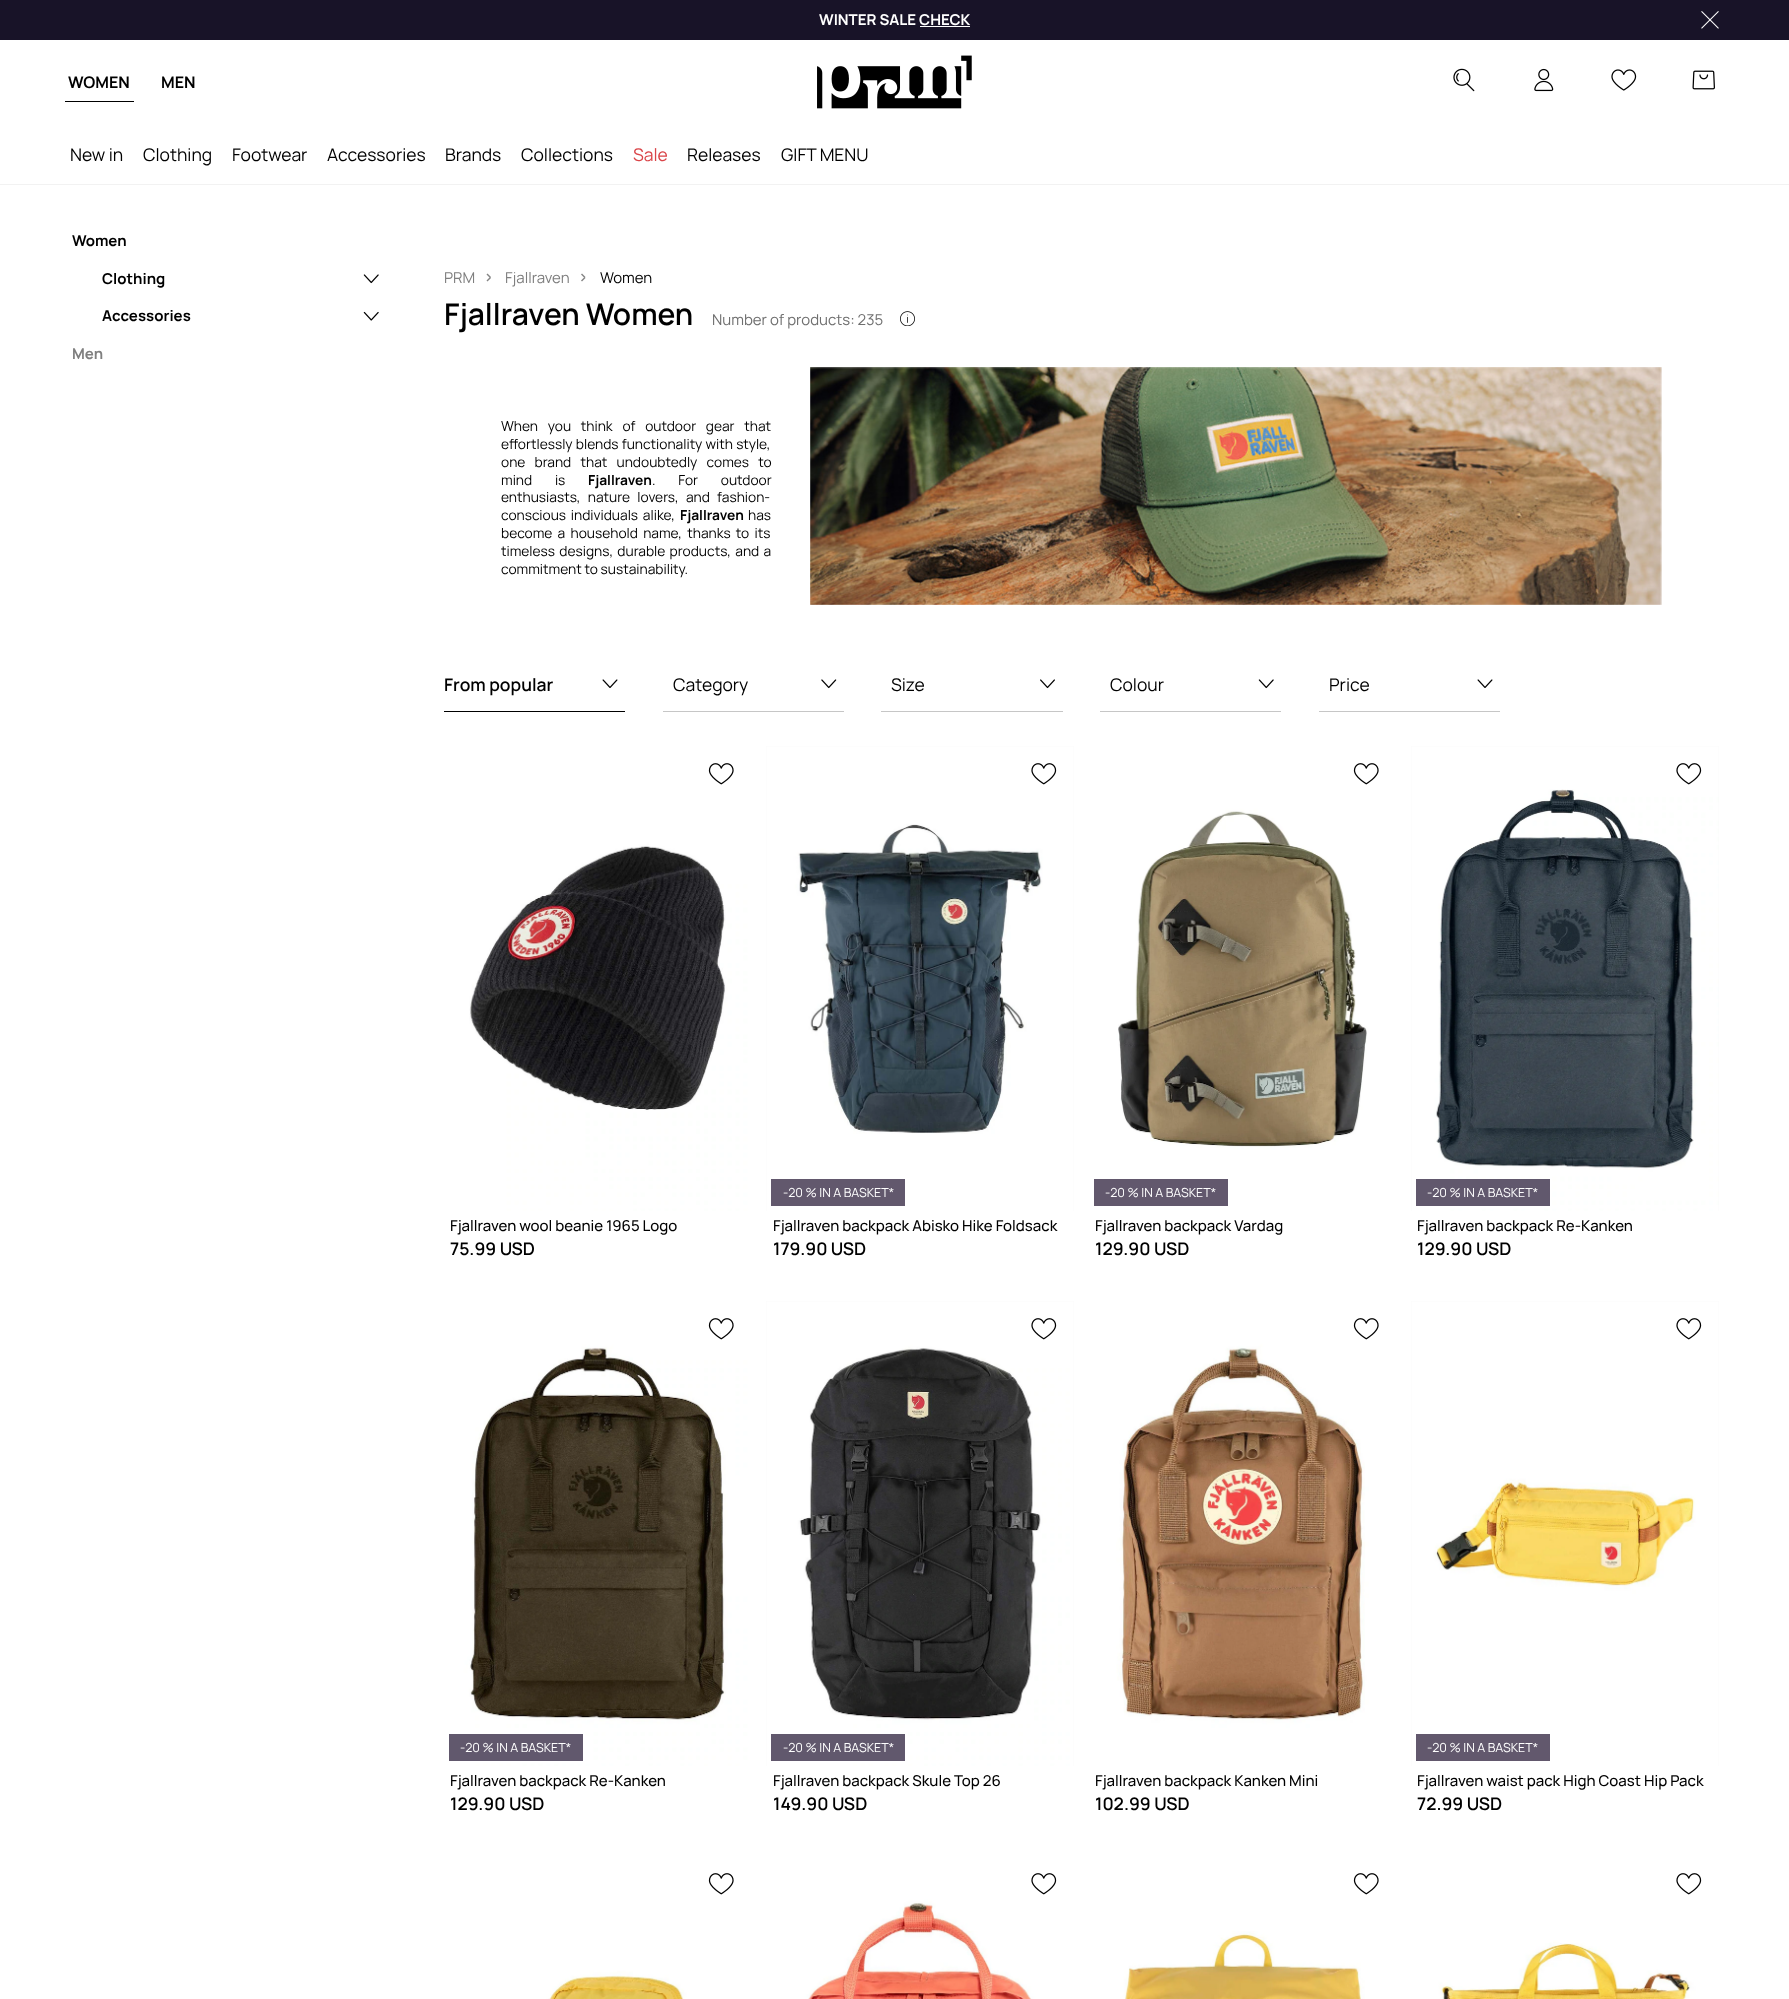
async function draw(canvas) {
	canvas.width = 1789;
	canvas.height = 1999;
	const c = canvas.getContext('2d');
	c.miterLimit = 4;
	c.fontKerning = 'normal';
	async function loadImage(src) {
		const img = new Image();
		img.src = src;
		await img.decode();
		return img;
	}

	c.fillStyle = '#fff';
	c.fillRect(0, 0, 1789, 1999);
	c.fillStyle = '#181328';
	c.fillRect(0, 0, 1789, 40);
	c.font = 'bold 15px Manrope';
	c.fillStyle = '#fff';
	c.fillText('WINTER SALE CHECK', 819, 25);
	c.fillRect(920, 26, 50, 1);
	c.drawImage(await loadImage('img1.png'), 1701, 11, 18, 18);
	c.fillStyle = '#f2f2f2';
	c.fillRect(0, 184, 1789, 1);
	c.font = 'bold 16px Manrope';
	c.fillStyle = '#000';
	c.fillText('WOMEN', 68, 88);
	c.fillRect(65, 101, 69, 1);
	c.fillText('MEN', 161, 88);
	c.drawImage(await loadImage('img2.png'), 817, 55, 155, 54);
	c.drawImage(await loadImage('img3.png'), 1453, 68, 22, 24);
	c.drawImage(await loadImage('img4.png'), 1534, 68, 20, 24);
	c.drawImage(await loadImage('img5.png'), 1611, 69, 26, 22);
	c.drawImage(await loadImage('img6.png'), 1692, 70, 23, 20);
	c.font = '17.5px Manrope';
	for (const [text, x, y] of [
		['New in', 70, 161],
		['Clothing', 143, 161],
		['Footwear', 232, 161],
		['Accessories', 327, 161],
		['Brands', 445, 161],
		['Collections', 521, 161],
	]) {
		c.fillText(text, x, y);
	}
	c.fillStyle = '#da4448';
	c.fillText('Sale', 633, 161);
	c.fillStyle = '#000';
	c.fillText('Releases', 687, 161);
	c.fillText('GIFT MENU', 781, 161);
	c.font = 'bold 15px Manrope';
	c.fillText('Women', 72, 246);
	c.fillText('Clothing', 102, 284);
	c.drawImage(await loadImage('img7.png'), 363, 274, 16, 10);
	c.fillText('Accessories', 102, 321);
	c.drawImage(await loadImage('img8.png'), 363, 311, 16, 10);
	c.fillStyle = '#7f7f7f';
	c.fillText('Men', 72, 359);
	c.font = '15px Manrope';
	c.fillText('PRM', 444, 283);
	c.fillStyle = '#848484';
	c.beginPath();
	c.moveTo(486.5, 280.5);
	c.lineTo(490, 277);
	c.lineTo(491, 278);
	c.lineTo(487.5, 281.5);
	c.closePath();
	c.fill();
	c.beginPath();
	c.moveTo(487.5, 273.5);
	c.lineTo(491, 277);
	c.lineTo(490, 278);
	c.lineTo(486.5, 274.5);
	c.closePath();
	c.fill();
	c.fillStyle = '#7f7f7f';
	c.fillText('Fjallraven', 505, 283);
	c.fillStyle = '#848484';
	c.beginPath();
	c.moveTo(581, 280.5);
	c.lineTo(584.5, 277);
	c.lineTo(585.5, 278);
	c.lineTo(582, 281.5);
	c.closePath();
	c.fill();
	c.beginPath();
	c.moveTo(582, 273.5);
	c.lineTo(585.5, 277);
	c.lineTo(584.5, 278);
	c.lineTo(581, 274.5);
	c.closePath();
	c.fill();
	c.fillStyle = '#000';
	c.fillText('Women', 600, 283);
	c.font = '600 30px Manrope';
	c.fillText('Fjallraven Women', 444, 325);
	c.font = '15px Manrope';
	c.fillStyle = '#6f6f6f';
	c.fillText('Number of products: 235', 712, 325);
	c.drawImage(await loadImage('img9.png'), 900, 311, 15, 15);
	c.wordSpacing = '7px';
	c.font = '13.75px Manrope';
	c.fillStyle = '#000';
	c.fillText('When you think of outdoor gear that', 501, 431);
	c.wordSpacing = '0.5px';
	c.fillText('effortlessly blends functionality with style,', 501, 449);
	c.wordSpacing = '6.5px';
	c.fillText('one brand that undoubtedly comes to', 501, 467);
	c.wordSpacing = '20px';
	c.fillText('mind is', 501, 485);
	c.wordSpacing = '0px';
	c.font = 'bold 13.75px Manrope';
	c.fillText('Fjallraven', 588, 485);
	c.wordSpacing = '20px';
	c.font = '13.75px Manrope';
	c.fillText('. For outdoor', 652, 485);
	c.wordSpacing = '4.5px';
	c.fillText('enthusiasts, nature lovers, and fashion-', 501, 502);
	c.wordSpacing = '2px';
	c.fillText('conscious individuals alike,', 501, 520);
	c.wordSpacing = '0px';
	c.font = 'bold 13.75px Manrope';
	c.fillText('Fjallraven', 680, 520);
	c.font = '13.75px Manrope';
	c.fillText('has', 748, 520);
	c.wordSpacing = '2.5px';
	c.fillText('become a household name, thanks to its', 501, 538);
	c.wordSpacing = '1.5px';
	c.fillText('timeless designs, durable products, and a', 501, 556);
	c.wordSpacing = '0px';
	c.fillText('commitment to sustainability.', 501, 574);
	c.drawImage(await loadImage('img10.png'), 810, 367, 852, 238);
	c.fillRect(444, 711, 181, 1);
	c.font = '600 17.5px Manrope';
	c.fillText('From popular', 444, 691);
	c.drawImage(await loadImage('img11.png'), 602, 679, 16, 9);
	c.fillStyle = '#c6c6c6';
	c.fillRect(663, 711, 181, 1);
	c.font = '17.5px Manrope';
	c.fillStyle = '#000';
	c.fillText('Category', 673, 691);
	c.drawImage(await loadImage('img12.png'), 821, 679, 16, 10);
	c.fillStyle = '#c6c6c6';
	c.fillRect(881, 711, 182, 1);
	c.fillStyle = '#000';
	c.fillText('Size', 891, 691);
	c.drawImage(await loadImage('img13.png'), 1040, 679, 15, 10);
	c.fillStyle = '#c6c6c6';
	c.fillRect(1100, 711, 181, 1);
	c.fillStyle = '#000';
	c.fillText('Colour', 1110, 691);
	c.drawImage(await loadImage('img7.png'), 1258, 679, 16, 10);
	c.fillStyle = '#c6c6c6';
	c.fillRect(1319, 711, 181, 1);
	c.fillStyle = '#000';
	c.fillText('Price', 1329, 691);
	c.drawImage(await loadImage('img11.png'), 1477, 679, 16, 9);
	c.drawImage(await loadImage('img14.png'), 444, 746, 307, 465);
	c.drawImage(await loadImage('img15.png'), 708, 763, 26, 22);
	c.font = '500 15px Manrope';
	c.fillText('Fjallraven wool beanie 1965 Logo', 450, 1231);
	c.font = '600 17.5px Manrope';
	c.fillText('75.99 USD', 450, 1255);
	c.fillStyle = '#f7f7f7';
	c.fillRect(766, 746, 308, 465);
	c.drawImage(await loadImage('img16.png'), 766, 746, 308, 465);
	c.drawImage(await loadImage('img17.png'), 1031, 763, 26, 22);
	c.fillStyle = '#62586d';
	c.fillRect(771, 1179, 134, 27);
	c.font = '12.5px Manrope';
	c.fillStyle = '#fff';
	c.fillText('-20 % IN A BASKET*', 783, 1197);
	c.font = '500 15px Manrope';
	c.fillStyle = '#000';
	c.fillText('Fjallraven backpack Abisko Hike Foldsack', 773, 1231);
	c.font = '600 17.5px Manrope';
	c.fillText('179.90 USD', 773, 1255);
	c.drawImage(await loadImage('img18.png'), 1089, 746, 307, 465);
	c.drawImage(await loadImage('img15.png'), 1353, 763, 26, 22);
	c.fillStyle = '#62586d';
	c.fillRect(1094, 1179, 134, 27);
	c.font = '12.5px Manrope';
	c.fillStyle = '#fff';
	c.fillText('-20 % IN A BASKET*', 1105, 1197);
	c.font = '500 15px Manrope';
	c.fillStyle = '#000';
	c.fillText('Fjallraven backpack Vardag', 1095, 1231);
	c.font = '600 17.5px Manrope';
	c.fillText('129.90 USD', 1095, 1255);
	c.fillStyle = '#f7f7f7';
	c.fillRect(1411, 746, 308, 465);
	c.drawImage(await loadImage('img19.png'), 1411, 746, 308, 465);
	c.drawImage(await loadImage('img17.png'), 1676, 763, 26, 22);
	c.fillStyle = '#61586d';
	c.fillRect(1416, 1179, 134, 27);
	c.font = '12.5px Manrope';
	c.fillStyle = '#fff';
	c.fillText('-20 % IN A BASKET*', 1427, 1197);
	c.font = '500 15px Manrope';
	c.fillStyle = '#000';
	c.fillText('Fjallraven backpack Re-Kanken', 1417, 1231);
	c.font = '600 17.5px Manrope';
	c.fillText('129.90 USD', 1417, 1255);
	c.drawImage(await loadImage('img20.png'), 444, 1301, 307, 465);
	c.drawImage(await loadImage('img15.png'), 708, 1318, 26, 22);
	c.fillStyle = '#61586d';
	c.fillRect(449, 1734, 134, 27);
	c.font = '12.5px Manrope';
	c.fillStyle = '#fff';
	c.fillText('-20 % IN A BASKET*', 460, 1752);
	c.font = '500 15px Manrope';
	c.fillStyle = '#000';
	c.fillText('Fjallraven backpack Re-Kanken', 450, 1786);
	c.font = '600 17.5px Manrope';
	c.fillText('129.90 USD', 450, 1810);
	c.fillStyle = '#f7f7f7';
	c.fillRect(766, 1301, 308, 465);
	c.drawImage(await loadImage('img21.png'), 766, 1301, 308, 465);
	c.drawImage(await loadImage('img17.png'), 1031, 1318, 26, 22);
	c.fillStyle = '#61586d';
	c.fillRect(771, 1734, 134, 27);
	c.font = '12.5px Manrope';
	c.fillStyle = '#fff';
	c.fillText('-20 % IN A BASKET*', 783, 1752);
	c.font = '500 15px Manrope';
	c.fillStyle = '#000';
	c.fillText('Fjallraven backpack Skule Top 26', 773, 1786);
	c.font = '600 17.5px Manrope';
	c.fillText('149.90 USD', 773, 1810);
	c.drawImage(await loadImage('img22.png'), 1089, 1301, 307, 465);
	c.drawImage(await loadImage('img15.png'), 1353, 1318, 26, 22);
	c.font = '500 15px Manrope';
	c.fillText('Fjallraven backpack Kanken Mini', 1095, 1786);
	c.font = '600 17.5px Manrope';
	c.fillText('102.99 USD', 1095, 1810);
	c.fillStyle = '#f7f7f7';
	c.fillRect(1411, 1301, 308, 465);
	c.drawImage(await loadImage('img23.png'), 1411, 1301, 308, 465);
	c.drawImage(await loadImage('img17.png'), 1676, 1318, 26, 22);
	c.fillStyle = '#62586d';
	c.fillRect(1416, 1734, 134, 27);
	c.font = '12.5px Manrope';
	c.fillStyle = '#fff';
	c.fillText('-20 % IN A BASKET*', 1427, 1752);
	c.font = '500 15px Manrope';
	c.fillStyle = '#000';
	c.fillText('Fjallraven waist pack High Coast Hip Pack', 1417, 1786);
	c.font = '600 17.5px Manrope';
	c.fillText('72.99 USD', 1417, 1810);
	c.drawImage(await loadImage('img24.png'), 444, 1856, 307, 143);
	c.drawImage(await loadImage('img15.png'), 708, 1873, 26, 22);
	c.drawImage(await loadImage('img25.png'), 766, 1856, 308, 143);
	c.drawImage(await loadImage('img17.png'), 1031, 1873, 26, 22);
	c.drawImage(await loadImage('img26.png'), 1089, 1856, 307, 143);
	c.drawImage(await loadImage('img15.png'), 1353, 1873, 26, 22);
	c.drawImage(await loadImage('img27.png'), 1411, 1856, 308, 143);
	c.drawImage(await loadImage('img17.png'), 1676, 1873, 26, 22);
}

draw(document.querySelector('canvas'));
